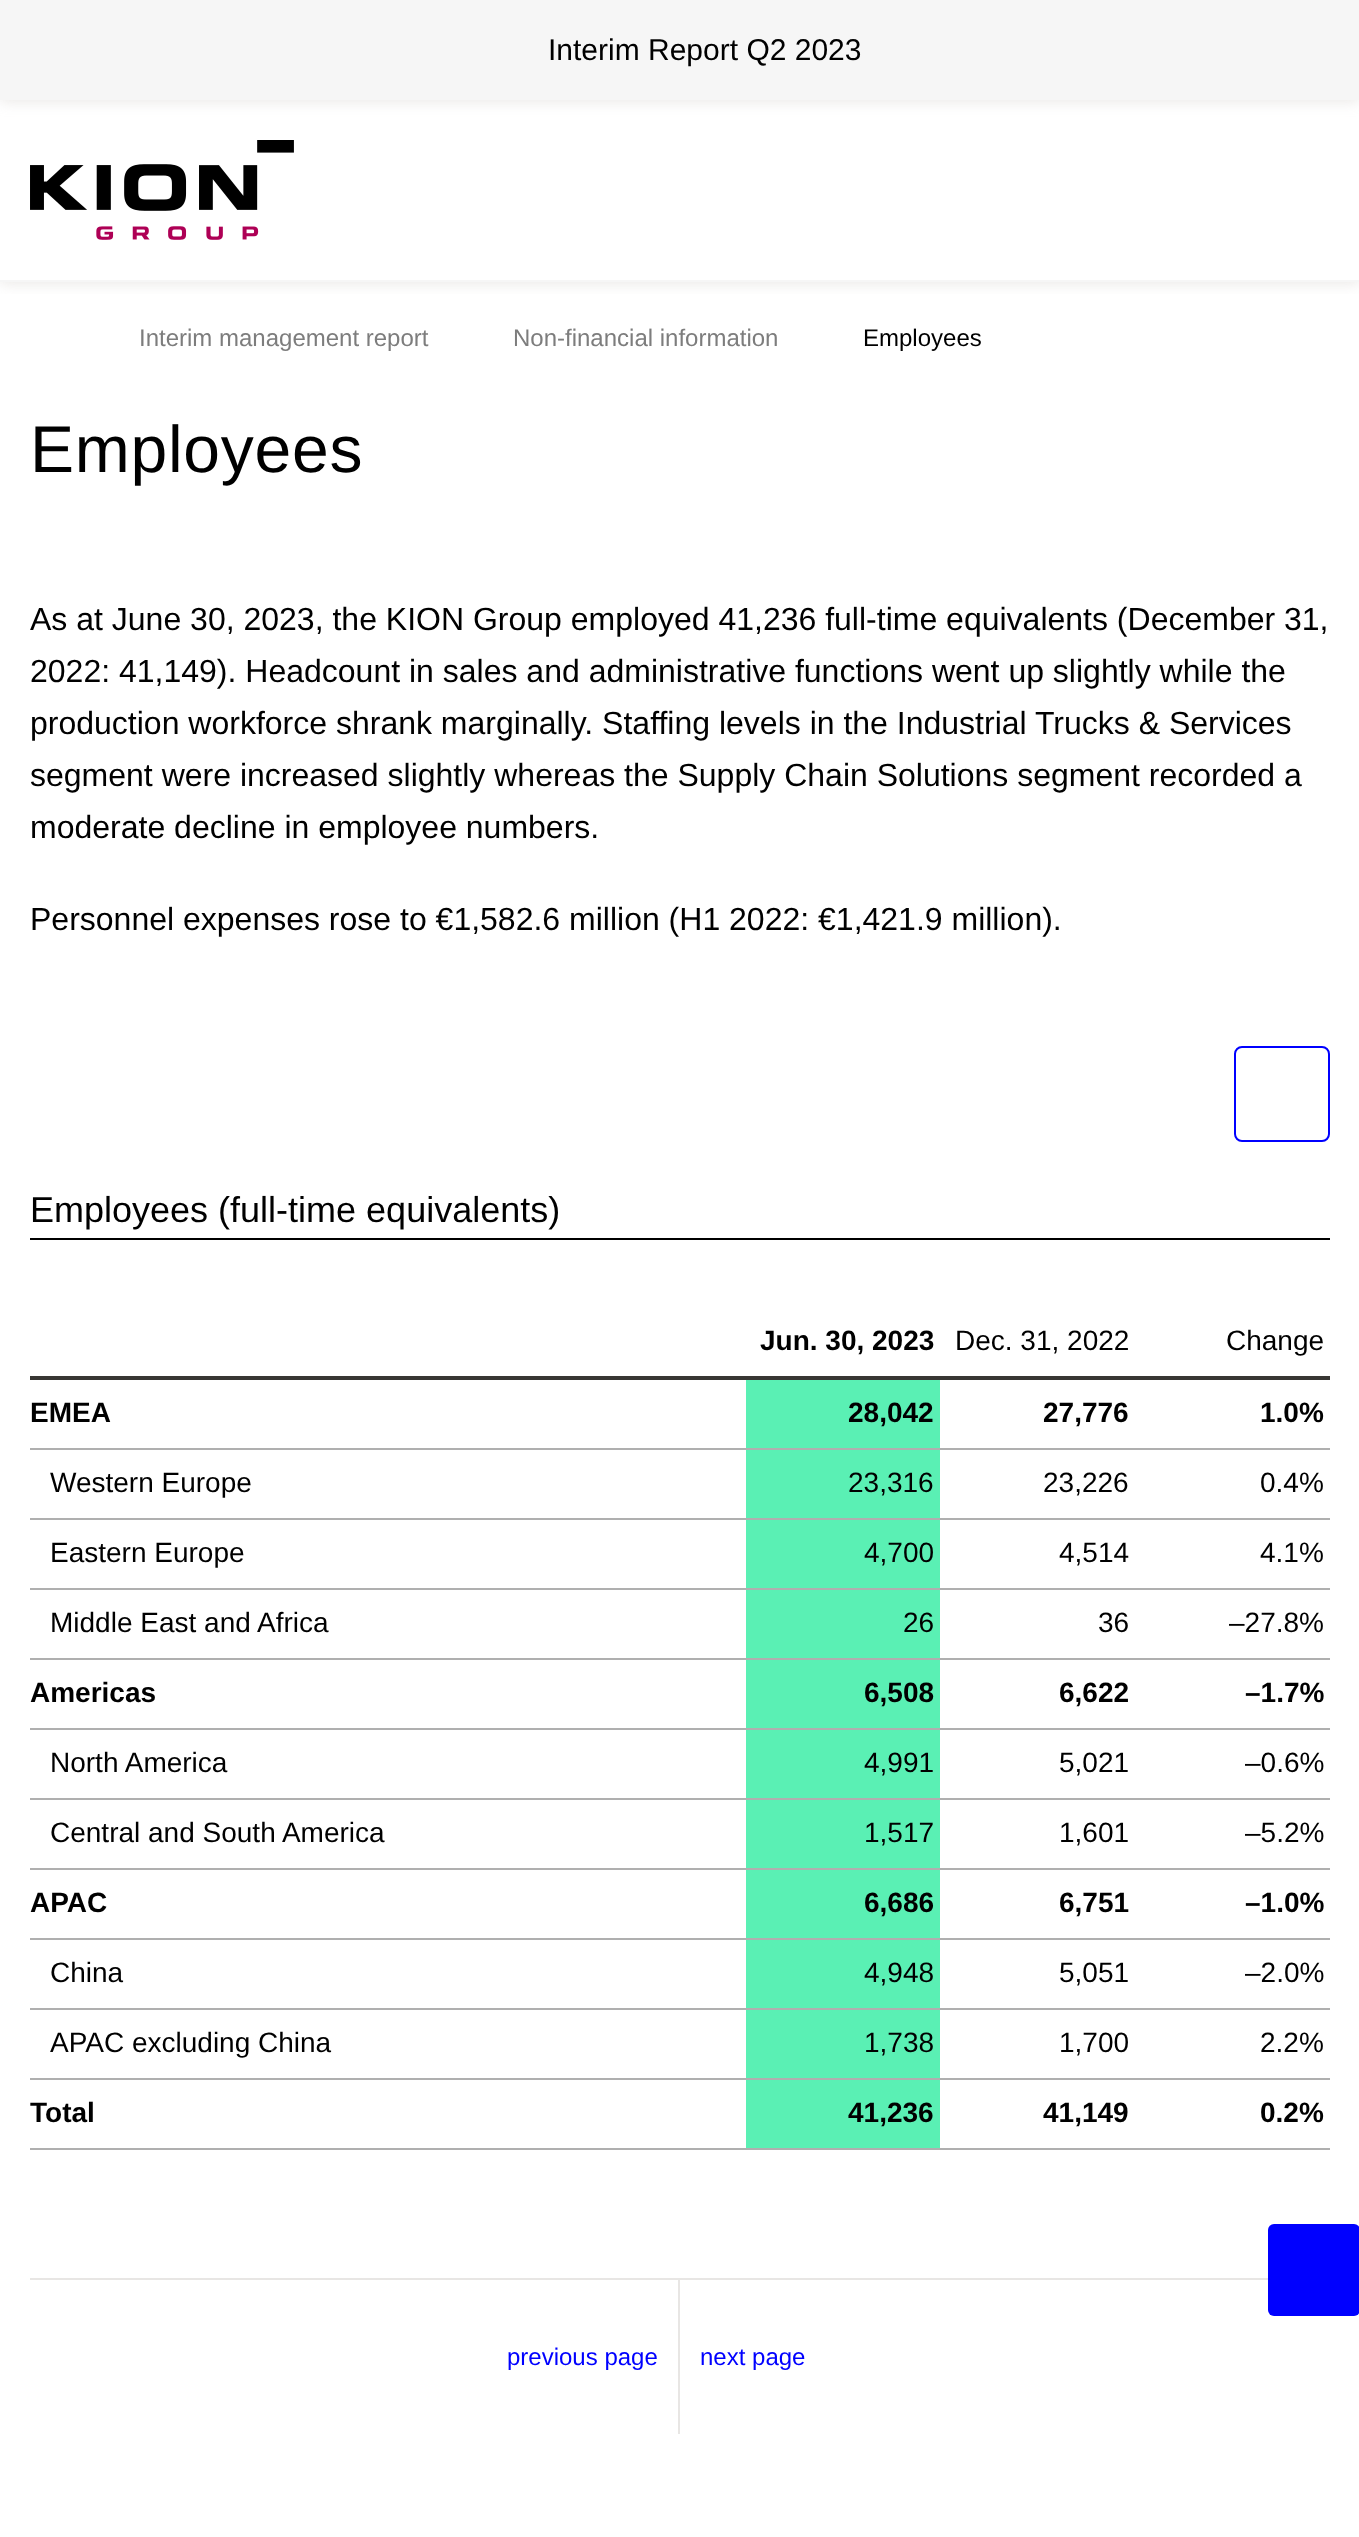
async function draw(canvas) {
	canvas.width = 1359;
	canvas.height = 2537;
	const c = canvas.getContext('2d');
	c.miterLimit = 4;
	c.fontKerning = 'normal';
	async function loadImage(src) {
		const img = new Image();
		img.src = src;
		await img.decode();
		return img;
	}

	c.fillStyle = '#fff';
	c.fillRect(0, 0, 1359, 2537);
	c.fillStyle = '#bdb6b04d';
	c.filter = 'blur(7px)';
	c.beginPath();
	c.rect(0, 2, 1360, 100);
	c.fill();
	c.filter = 'none';
	c.save();
	c.beginPath();
	c.rect(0, 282, 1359, 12);
	c.clip();
	c.filter = 'blur(7px)';
	c.beginPath();
	c.rect(0, 102, 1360, 182);
	c.fill();
	c.filter = 'none';
	c.restore();
	c.fillStyle = '#f6f6f6';
	c.fillRect(0, 0, 1359, 100);
	c.font = '30px Liberation Sans';
	c.fillStyle = '#000';
	c.fillText('Interim Report Q2 2023', 548, 60);
	c.fillStyle = '#f6f6f6';
	c.fillRect(0, 280, 1359, 2);
	c.drawImage(await loadImage('img1.png'), 30, 140, 264, 100);
	c.font = '24px Liberation Sans';
	c.fillStyle = '#7d7d7d';
	c.fillText('Interim management report', 139, 346);
	c.fillText('Non-financial information', 513, 346);
	c.fillStyle = '#000';
	c.fillText('Employees', 863, 346);
	c.letterSpacing = '0.75px';
	c.font = '66px Liberation Sans';
	c.fillText('Employees', 30, 472);
	c.letterSpacing = '0px';
	c.font = '32px Liberation Sans';
	for (const [text, x, y] of [
		['As at June 30, 2023, the KION Group employed 41,236 full-time equivalents (December 31,', 30, 630],
		['2022: 41,149). Headcount in sales and administrative functions went up slightly while the', 30, 682],
		['production workforce shrank marginally. Staffing levels in the Industrial Trucks & Services', 30, 734],
		['segment were increased slightly whereas the Supply Chain Solutions segment recorded a', 30, 786],
		['moderate decline in employee numbers.', 30, 838],
		['Personnel expenses rose to €1,582.6 million (H1 2022: €1,421.9 million).', 30, 930],
	]) {
		c.fillText(text, x, y);
	}
	c.beginPath();
	c.roundRect(1235, 1047, 94, 94, 7);
	c.strokeStyle = '#00f';
	c.lineWidth = 2;
	c.stroke();
	c.fillRect(30, 1238, 1300, 2);
	c.font = '36px Liberation Sans';
	c.fillText('Employees (full-time equivalents)', 30, 1222);
	c.font = 'bold 28px Liberation Sans';
	c.fillText('Jun. 30, 2023', 760, 1350);
	c.font = '28px Liberation Sans';
	c.fillText('Dec. 31, 2022', 955, 1350);
	c.fillText('Change', 1226, 1350);
	c.fillStyle = '#383633';
	c.fillRect(30, 1376, 1300, 4);
	c.fillStyle = '#afafaf';
	c.fillRect(30, 1448, 1300, 2);
	c.font = 'bold 28px Liberation Sans';
	c.fillStyle = '#000';
	c.fillText('EMEA', 30, 1422);
	c.fillStyle = '#5af0b4';
	c.fillRect(746, 1380, 194, 68);
	c.fillStyle = '#000';
	for (const [text, x, y] of [
		['28,042', 848, 1422],
		['27,776', 1043, 1422],
		['1.0%', 1260, 1422],
	]) {
		c.fillText(text, x, y);
	}
	c.fillStyle = '#afafaf';
	c.fillRect(30, 1518, 1300, 2);
	c.font = '28px Liberation Sans';
	c.fillStyle = '#000';
	c.fillText('Western Europe', 50, 1492);
	c.fillStyle = '#5af0b4';
	c.fillRect(746, 1450, 194, 68);
	c.fillStyle = '#000';
	for (const [text, x, y] of [
		['23,316', 848, 1492],
		['23,226', 1043, 1492],
		['0.4%', 1260, 1492],
	]) {
		c.fillText(text, x, y);
	}
	c.fillStyle = '#afafaf';
	c.fillRect(30, 1588, 1300, 2);
	c.fillStyle = '#000';
	c.fillText('Eastern Europe', 50, 1562);
	c.fillStyle = '#5af0b4';
	c.fillRect(746, 1520, 194, 68);
	c.fillStyle = '#000';
	for (const [text, x, y] of [
		['4,700', 864, 1562],
		['4,514', 1059, 1562],
		['4.1%', 1260, 1562],
	]) {
		c.fillText(text, x, y);
	}
	c.fillStyle = '#afafaf';
	c.fillRect(30, 1658, 1300, 2);
	c.fillStyle = '#000';
	c.fillText('Middle East and Africa', 50, 1632);
	c.fillStyle = '#5af0b4';
	c.fillRect(746, 1590, 194, 68);
	c.fillStyle = '#000';
	for (const [text, x, y] of [
		['26', 903, 1632],
		['36', 1098, 1632],
		['–27.8%', 1229, 1632],
	]) {
		c.fillText(text, x, y);
	}
	c.fillStyle = '#afafaf';
	c.fillRect(30, 1728, 1300, 2);
	c.font = 'bold 28px Liberation Sans';
	c.fillStyle = '#000';
	c.fillText('Americas', 30, 1702);
	c.fillStyle = '#5af0b4';
	c.fillRect(746, 1660, 194, 68);
	c.fillStyle = '#000';
	for (const [text, x, y] of [
		['6,508', 864, 1702],
		['6,622', 1059, 1702],
		['–1.7%', 1245, 1702],
	]) {
		c.fillText(text, x, y);
	}
	c.fillStyle = '#afafaf';
	c.fillRect(30, 1798, 1300, 2);
	c.font = '28px Liberation Sans';
	c.fillStyle = '#000';
	c.fillText('North America', 50, 1772);
	c.fillStyle = '#5af0b4';
	c.fillRect(746, 1730, 194, 68);
	c.fillStyle = '#000';
	for (const [text, x, y] of [
		['4,991', 864, 1772],
		['5,021', 1059, 1772],
		['–0.6%', 1245, 1772],
	]) {
		c.fillText(text, x, y);
	}
	c.fillStyle = '#afafaf';
	c.fillRect(30, 1868, 1300, 2);
	c.fillStyle = '#000';
	c.fillText('Central and South America', 50, 1842);
	c.fillStyle = '#5af0b4';
	c.fillRect(746, 1800, 194, 68);
	c.fillStyle = '#000';
	for (const [text, x, y] of [
		['1,517', 864, 1842],
		['1,601', 1059, 1842],
		['–5.2%', 1245, 1842],
	]) {
		c.fillText(text, x, y);
	}
	c.fillStyle = '#afafaf';
	c.fillRect(30, 1938, 1300, 2);
	c.font = 'bold 28px Liberation Sans';
	c.fillStyle = '#000';
	c.fillText('APAC', 30, 1912);
	c.fillStyle = '#5af0b4';
	c.fillRect(746, 1870, 194, 68);
	c.fillStyle = '#000';
	for (const [text, x, y] of [
		['6,686', 864, 1912],
		['6,751', 1059, 1912],
		['–1.0%', 1245, 1912],
	]) {
		c.fillText(text, x, y);
	}
	c.fillStyle = '#afafaf';
	c.fillRect(30, 2008, 1300, 2);
	c.font = '28px Liberation Sans';
	c.fillStyle = '#000';
	c.fillText('China', 50, 1982);
	c.fillStyle = '#5af0b4';
	c.fillRect(746, 1940, 194, 68);
	c.fillStyle = '#000';
	for (const [text, x, y] of [
		['4,948', 864, 1982],
		['5,051', 1059, 1982],
		['–2.0%', 1245, 1982],
	]) {
		c.fillText(text, x, y);
	}
	c.fillStyle = '#afafaf';
	c.fillRect(30, 2078, 1300, 2);
	c.fillStyle = '#000';
	c.fillText('APAC excluding China', 50, 2052);
	c.fillStyle = '#5af0b4';
	c.fillRect(746, 2010, 194, 68);
	c.fillStyle = '#000';
	for (const [text, x, y] of [
		['1,738', 864, 2052],
		['1,700', 1059, 2052],
		['2.2%', 1260, 2052],
	]) {
		c.fillText(text, x, y);
	}
	c.fillStyle = '#afafaf';
	c.fillRect(30, 2148, 1300, 2);
	c.font = 'bold 28px Liberation Sans';
	c.fillStyle = '#000';
	c.fillText('Total', 30, 2122);
	c.fillStyle = '#5af0b4';
	c.fillRect(746, 2080, 194, 68);
	c.fillStyle = '#000';
	for (const [text, x, y] of [
		['41,236', 848, 2122],
		['41,149', 1043, 2122],
		['0.2%', 1260, 2122],
	]) {
		c.fillText(text, x, y);
	}
	c.fillStyle = '#e8e6e4';
	c.fillRect(30, 2278, 1238, 2);
	c.fillRect(678, 2280, 2, 154);
	c.font = '24px Liberation Sans';
	c.fillStyle = '#00f';
	c.fillText('previous page', 507, 2365);
	c.fillText('next page', 700, 2365);
	c.beginPath();
	c.roundRect(1268, 2224, 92, 92, 6);
	c.fill();
}

draw(document.querySelector('canvas'));
